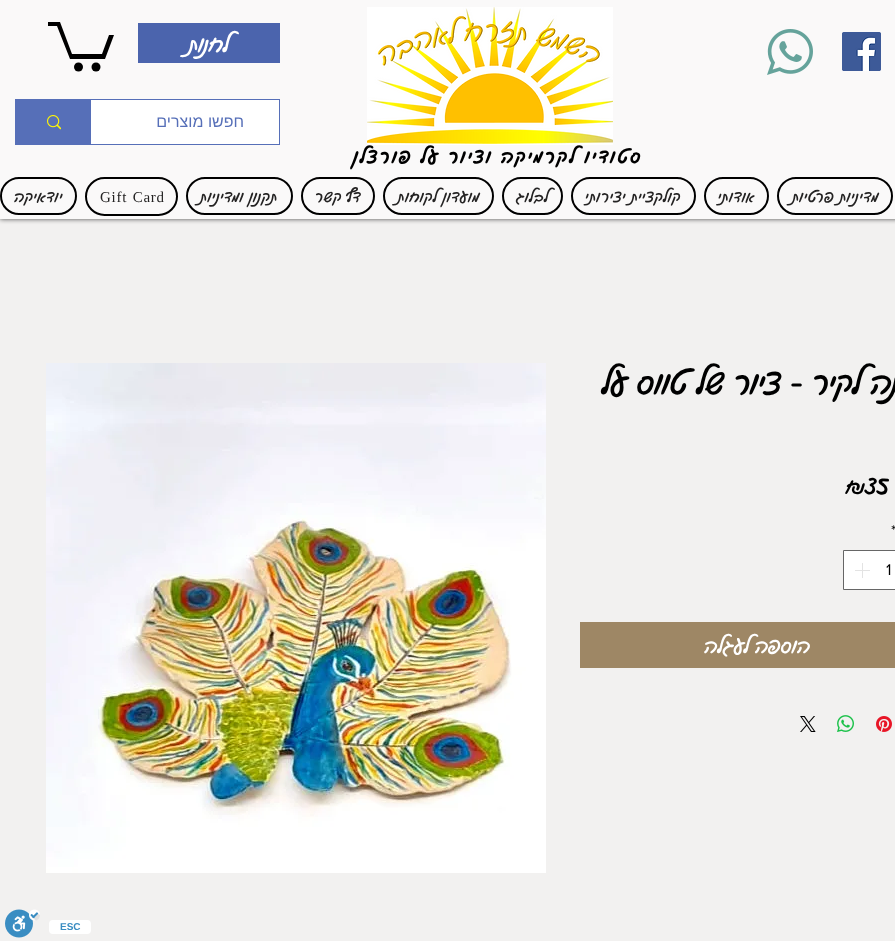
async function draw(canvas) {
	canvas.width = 895;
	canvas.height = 941;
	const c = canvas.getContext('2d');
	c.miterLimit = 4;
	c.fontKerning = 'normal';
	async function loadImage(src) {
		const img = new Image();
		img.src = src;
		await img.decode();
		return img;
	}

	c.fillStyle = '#f2f1f0';
	c.fillRect(0, 0, 895, 941);
	c.fillStyle = '#000000b3';
	c.filter = 'blur(2.5px)';
	c.beginPath();
	c.rect(0, 0, 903, 219);
	c.fill();
	c.filter = 'none';
	c.fillStyle = '#faf9f9';
	c.fillRect(0, 0, 895, 219);
	c.drawImage(await loadImage('img1.png'), 842, 32, 39, 39);
	c.drawImage(await loadImage('img2.png'), 767, 29, 46, 46);
	c.drawImage(await loadImage('img3.png'), 367, 7, 246, 138);
	c.fillStyle = '#4b64ad';
	c.fillRect(138, 23, 142, 40);
	c.direction = 'rtl';
	c.font = '22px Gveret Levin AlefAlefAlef';
	c.fillStyle = '#fff';
	c.fillText('לחנות', 229, 52);
	c.fillStyle = '#000';
	c.beginPath();
	c.moveTo(114, 35);
	c.lineTo(105, 59);
	c.lineTo(70, 59);
	c.lineTo(57, 26);
	c.lineTo(48, 26);
	c.lineTo(48, 22);
	c.lineTo(60, 22);
	c.lineTo(72, 54);
	c.lineTo(102, 54);
	c.lineTo(109, 35);
	c.fill();
	c.beginPath();
	c.arc(96, 67, 4.5, 0, 2 * Math.PI);
	c.fill();
	c.beginPath();
	c.arc(78.5, 67, 4.5, 0, 2 * Math.PI);
	c.fill();
	c.strokeStyle = '#566fb8';
	c.strokeRect(15.5, 99.5, 264, 45);
	c.fillStyle = '#fff';
	c.fillRect(91, 100, 188, 44);
	c.font = '16px Liberation Sans';
	c.fillStyle = '#566fb8';
	c.fillText('חפשו מוצרים', 244, 127);
	c.fillRect(16, 100, 75, 44);
	c.drawImage(await loadImage('img4.png'), 47, 115, 14, 15);
	c.letterSpacing = '2.7px';
	c.font = 'bold 18px Gveret Levin AlefAlefAlef';
	c.fillStyle = '#000';
	c.fillText('סטודיו לקרמיקה וציור על פורצלן', 643, 163);
	c.beginPath();
	c.roundRect(778, 178, 114, 36, 18);
	c.strokeStyle = '#000';
	c.lineWidth = 2;
	c.stroke();
	c.letterSpacing = '0.75px';
	c.font = '15px Gveret Levin AlefAlefAlef';
	c.fillStyle = '#242323';
	c.fillText('מדיניות פרטיות', 879, 202);
	c.beginPath();
	c.roundRect(705, 178, 63, 36, 18);
	c.stroke();
	c.fillText('אודותי', 755, 202);
	c.beginPath();
	c.roundRect(572, 178, 123, 36, 18);
	c.stroke();
	c.fillText('קולקציית יצירותי', 681, 202);
	c.beginPath();
	c.roundRect(503, 178, 59, 36, 18);
	c.stroke();
	c.fillText('לבלוג', 549, 202);
	c.beginPath();
	c.roundRect(384, 178, 109, 36, 18);
	c.stroke();
	c.fillText('מועדון לקוחות', 480, 202);
	c.beginPath();
	c.roundRect(302, 178, 72, 36, 18);
	c.stroke();
	c.fillText('דף קשר', 361, 202);
	c.beginPath();
	c.roundRect(187, 178, 105, 36, 18);
	c.stroke();
	c.fillText('תקנון ומדיניות', 278, 202);
	c.beginPath();
	c.roundRect(86, 178, 91, 37, 18.5);
	c.stroke();
	c.wordSpacing = '1px';
	c.direction = 'ltr';
	c.font = '15px Liberation Serif';
	c.fillText('Gift Card', 100, 202);
	c.beginPath();
	c.roundRect(1, 178, 75, 36, 18);
	c.stroke();
	c.wordSpacing = '0px';
	c.direction = 'rtl';
	c.font = '15px Gveret Levin AlefAlefAlef';
	c.fillText('יודאיקה', 63, 202);
	c.letterSpacing = '0px';
	c.font = '32px Gveret Levin AlefAlefAlef';
	c.fillStyle = '#000';
	c.fillText('תמונה לקיר - ציור של טווס על', 935, 394);
	c.direction = 'ltr';
	c.font = '26px Gveret Levin AlefAlefAlef';
	c.fillText('₪35', 846, 494);
	c.font = '16px "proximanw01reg"';
	c.fillText('*', 891, 536);
	c.fillStyle = '#fff';
	c.beginPath();
	c.rect(843.5, 550.5, 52, 39);
	c.fill();
	c.strokeStyle = '#666';
	c.lineWidth = 1;
	c.stroke();
	c.fillStyle = '#000';
	c.fillText('1', 886, 575);
	c.drawImage(await loadImage('img5.png'), 855, 563, 15, 15);
	c.fillStyle = '#9e8765';
	c.fillRect(580, 622, 315, 46);
	c.direction = 'rtl';
	c.font = '20px Gveret Levin AlefAlefAlef';
	c.fillStyle = '#fff';
	c.fillText('הוספה לעגלה', 810, 653);
	c.drawImage(await loadImage('img6.png'), 876, 716, 16, 16);
	c.drawImage(await loadImage('img7.png'), 837, 715, 17, 17);
	c.drawImage(await loadImage('img8.png'), 800, 716, 16, 16);
	c.drawImage(await loadImage('img9.png'), 46, 363, 500, 510);
	c.beginPath();
	c.roundRect(49, 920, 42, 14, 4);
	c.fill();
	c.direction = 'ltr';
	c.font = 'bold 10px Liberation Sans';
	c.fillStyle = '#3a8dc2';
	c.fillText('ESC', 60, 930);
	c.drawImage(await loadImage('img10.png'), 5, 909, 35, 29);
}

draw(document.querySelector('canvas'));
